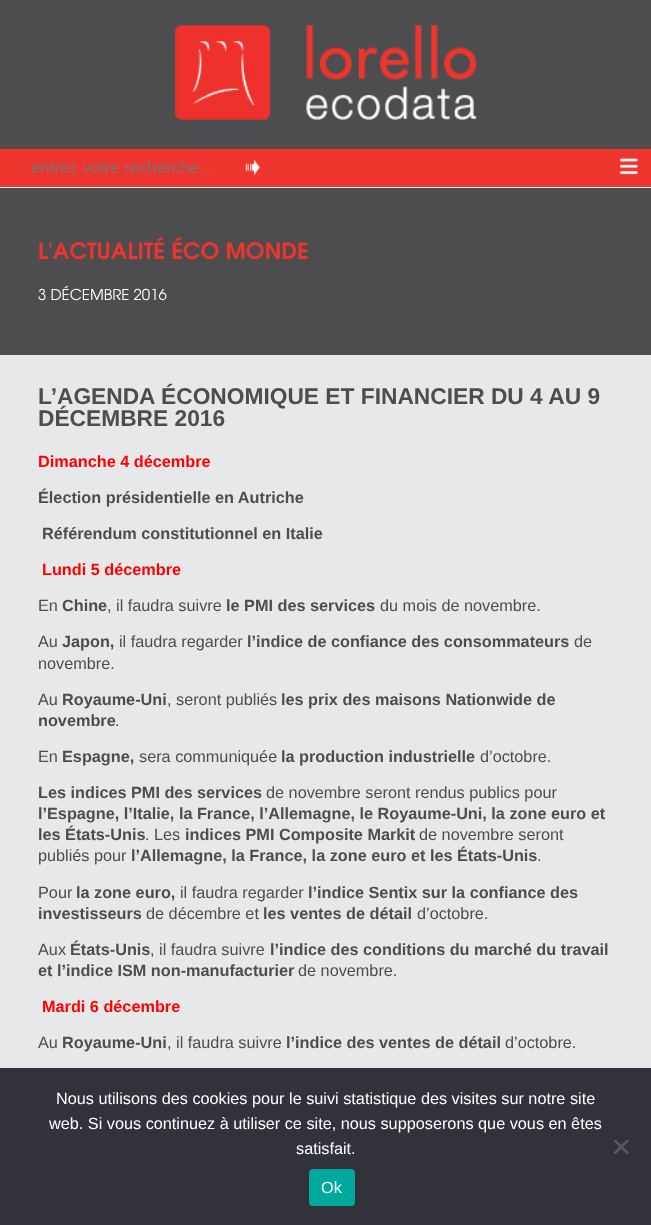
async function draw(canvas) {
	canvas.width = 651;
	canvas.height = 1225;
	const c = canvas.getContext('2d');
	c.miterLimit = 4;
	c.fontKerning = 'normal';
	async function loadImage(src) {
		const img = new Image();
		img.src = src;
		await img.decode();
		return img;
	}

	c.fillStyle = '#fff';
	c.fillRect(0, 0, 651, 1225);
	c.fillStyle = '#ee352d';
	c.fillRect(0, 149, 651, 38);
	c.fillStyle = '#4d4d4f';
	c.fillRect(0, 0, 651, 149);
	c.drawImage(await loadImage('img1.png'), 175, 25, 302, 95);
	c.font = '16.75px Liberation Sans';
	c.fillStyle = '#757575';
	c.fillText('entrez votre recherche...', 31, 173);
	c.drawImage(await loadImage('img2.png'), 245, 159, 15, 17);
	c.drawImage(await loadImage('img3.png'), 619, 157, 19, 18);
	c.fillStyle = '#e6e8e9';
	c.fillRect(0, 355, 651, 713);
	c.fillStyle = '#4d4d4f';
	c.fillRect(0, 188, 651, 167);
	c.font = 'bold 22.5px TeX Gyre Adventor';
	c.fillStyle = '#ee352d';
	c.fillText('L\'ACTUALITÉ ÉCO MONDE', 38, 259);
	c.font = '15px TeX Gyre Adventor';
	c.fillStyle = '#fff';
	c.fillText('3 DÉCEMBRE 2016', 38, 300);
	c.font = 'bold 22.75px Liberation Sans';
	c.fillStyle = '#4d4d4f';
	c.fillText('L’AGENDA ÉCONOMIQUE ET FINANCIER DU 4 AU 9', 38, 404);
	c.fillText('DÉCEMBRE 2016', 38, 426);
	c.font = 'bold 16.25px Liberation Sans';
	c.fillStyle = '#f00';
	c.fillText('Dimanche 4 décembre', 38, 467);
	c.fillStyle = '#4d4d4f';
	c.fillText('Élection présidentielle en Autriche', 38, 503);
	c.fillText('Référendum constitutionnel en Italie', 42, 539);
	c.fillStyle = '#f00';
	c.fillText('Lundi 5 décembre', 42, 575);
	c.font = '16.25px Liberation Sans';
	c.fillStyle = '#4d4d4f';
	c.fillText('En', 38, 611);
	c.font = 'bold 16.25px Liberation Sans';
	c.fillText('Chine', 62, 611);
	c.font = '16.25px Liberation Sans';
	c.fillText(', il faudra suivre', 107, 611);
	c.font = 'bold 16.25px Liberation Sans';
	c.fillText('le PMI des services', 226, 611);
	c.font = '16.25px Liberation Sans';
	c.fillText('du mois de novembre.', 380, 611);
	c.fillText('Au', 38, 647);
	c.font = 'bold 16.25px Liberation Sans';
	c.fillText('Japon,', 62, 647);
	c.font = '16.25px Liberation Sans';
	c.fillText('il faudra regarder', 119, 647);
	c.font = 'bold 16.25px Liberation Sans';
	c.fillText('l’indice de confiance des consommateurs', 247, 647);
	c.font = '16.25px Liberation Sans';
	for (const [text, x, y] of [
		['de', 574, 647],
		['novembre.', 38, 669],
		['Au', 38, 705],
	]) {
		c.fillText(text, x, y);
	}
	c.font = 'bold 16.25px Liberation Sans';
	c.fillText('Royaume-Uni', 62, 705);
	c.font = '16.25px Liberation Sans';
	c.fillText(', seront publiés', 167, 705);
	c.font = 'bold 16.25px Liberation Sans';
	c.fillText('les prix des maisons Nationwide de', 281, 705);
	c.fillText('novembre', 38, 726);
	c.font = '16.25px Liberation Sans';
	c.fillText('.', 115, 726);
	c.fillText('En', 38, 762);
	c.font = 'bold 16.25px Liberation Sans';
	c.fillText('Espagne,', 62, 762);
	c.font = '16.25px Liberation Sans';
	c.fillText('sera communiquée', 139, 762);
	c.font = 'bold 16.25px Liberation Sans';
	c.fillText('la production industrielle', 281, 762);
	c.font = '16.25px Liberation Sans';
	c.fillText('d’octobre.', 480, 762);
	c.font = 'bold 16.25px Liberation Sans';
	c.fillText('Les indices PMI des services', 38, 798);
	c.font = '16.25px Liberation Sans';
	c.fillText('de novembre seront rendus publics pour', 266, 798);
	c.font = 'bold 16.25px Liberation Sans';
	c.fillText('l’Espagne, l’Italie, la France, l’Allemagne, le Royaume-Uni, la zone euro et', 38, 819);
	c.fillText('les États-Unis', 38, 840);
	c.font = '16.25px Liberation Sans';
	c.fillText('. Les', 145, 840);
	c.font = 'bold 16.25px Liberation Sans';
	c.fillText('indices PMI Composite Markit', 185, 840);
	c.font = '16.25px Liberation Sans';
	c.fillText('de novembre seront', 419, 840);
	c.fillText('publiés pour', 38, 861);
	c.font = 'bold 16.25px Liberation Sans';
	c.fillText('l’Allemagne, la France, la zone euro et les États-Unis', 131, 861);
	c.font = '16.25px Liberation Sans';
	c.fillText('.', 537, 861);
	c.fillText('Pour', 38, 898);
	c.font = 'bold 16.25px Liberation Sans';
	c.fillText('la zone euro,', 76, 898);
	c.font = '16.25px Liberation Sans';
	c.fillText('il faudra regarder', 180, 898);
	c.font = 'bold 16.25px Liberation Sans';
	c.fillText('l’indice Sentix sur la confiance des', 308, 898);
	c.fillText('investisseurs', 38, 919);
	c.font = '16.25px Liberation Sans';
	c.fillText('de décembre et', 146, 919);
	c.font = 'bold 16.25px Liberation Sans';
	c.fillText('les ventes de détail', 263, 919);
	c.font = '16.25px Liberation Sans';
	c.fillText('d’octobre.', 417, 919);
	c.fillText('Aux', 38, 955);
	c.font = 'bold 16.25px Liberation Sans';
	c.fillText('États-Unis', 70, 955);
	c.font = '16.25px Liberation Sans';
	c.fillText(', il faudra suivre', 150, 955);
	c.font = 'bold 16.25px Liberation Sans';
	c.fillText('l’indice des conditions du marché du travail', 270, 955);
	c.fillText('et l’indice ISM non-manufacturier', 38, 976);
	c.font = '16.25px Liberation Sans';
	c.fillText('de novembre.', 298, 976);
	c.font = 'bold 16.25px Liberation Sans';
	c.fillStyle = '#f00';
	c.fillText('Mardi 6 décembre', 42, 1012);
	c.font = '16.25px Liberation Sans';
	c.fillStyle = '#4d4d4f';
	c.fillText('Au', 38, 1048);
	c.font = 'bold 16.25px Liberation Sans';
	c.fillText('Royaume-Uni', 62, 1048);
	c.font = '16.25px Liberation Sans';
	c.fillText(', il faudra suivre', 167, 1048);
	c.font = 'bold 16.25px Liberation Sans';
	c.fillText('l’indice des ventes de détail', 286, 1048);
	c.font = '16.25px Liberation Sans';
	c.fillText('d’octobre.', 505, 1048);
	c.fillStyle = '#32323a';
	c.fillRect(0, 1068, 651, 157);
	c.fillStyle = '#fff';
	for (const [text, x, y] of [
		['Nous utilisons des cookies pour le suivi statistique des visites sur notre site', 56, 1104],
		['web. Si vous continuez à utiliser ce site, nous supposerons que vous en êtes', 49, 1129],
		['satisfait.', 296, 1154],
	]) {
		c.fillText(text, x, y);
	}
	c.fillStyle = '#59595d';
	c.beginPath();
	c.moveTo(627, 1139.5);
	c.lineTo(629, 1141);
	c.lineTo(615.5, 1154.5);
	c.lineTo(613.5, 1152.5);
	c.closePath();
	c.fill();
	c.beginPath();
	c.moveTo(613.5, 1141);
	c.lineTo(615.5, 1139.5);
	c.lineTo(629, 1152.5);
	c.lineTo(627, 1154.5);
	c.closePath();
	c.fill();
	c.fillStyle = '#00a99d';
	c.beginPath();
	c.roundRect(309, 1169, 46, 37, 4);
	c.fill();
	c.fillStyle = '#fff';
	c.fillText('Ok', 321, 1193);
}

draw(document.querySelector('canvas'));
